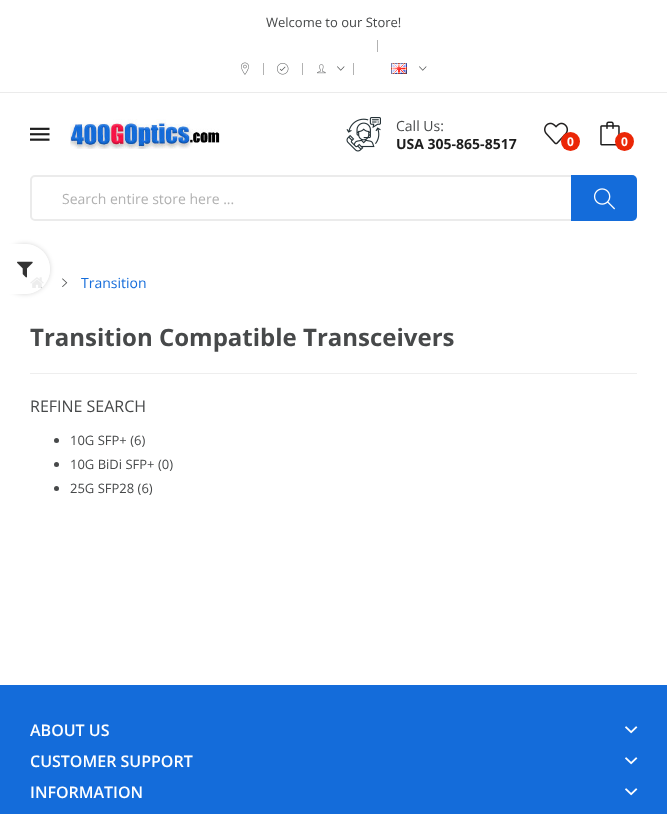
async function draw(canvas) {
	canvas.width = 667;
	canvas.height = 814;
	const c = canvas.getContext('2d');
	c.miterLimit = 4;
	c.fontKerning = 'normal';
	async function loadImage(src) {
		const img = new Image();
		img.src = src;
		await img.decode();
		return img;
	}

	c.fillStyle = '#fff';
	c.fillRect(0, 0, 667, 814);
	c.fillStyle = '#ebebeb';
	c.fillRect(0, 92, 667, 1);
	c.font = '13px Open Sans';
	c.fillStyle = '#47494a';
	c.fillText('Welcome to our Store!', 266, 27);
	c.fillStyle = '#b2b2b2';
	c.fillRect(377, 40, 1, 12);
	c.drawImage(await loadImage('img1.png'), 241, 62, 8, 13);
	c.fillRect(263, 63, 1, 12);
	c.drawImage(await loadImage('img2.png'), 277, 63, 12, 12);
	c.fillRect(302, 63, 1, 12);
	c.drawImage(await loadImage('img3.png'), 317, 64, 9, 10);
	c.drawImage(await loadImage('img4.png'), 337, 66, 8, 5);
	c.fillRect(353, 63, 1, 12);
	c.drawImage(await loadImage('img5.png'), 391, 63, 16, 11);
	c.drawImage(await loadImage('img4.png'), 419, 66, 8, 5);
	c.drawImage(await loadImage('img6.png'), 346, 117, 35, 35);
	c.font = '14px Open Sans';
	c.fillStyle = '#47494a';
	c.fillText('Call Us:', 396, 131);
	c.font = 'bold 14px Open Sans';
	c.fillStyle = '#1d1d1d';
	c.fillText('USA 305-865-8517', 396, 149);
	c.drawImage(await loadImage('img7.png'), 30, 127, 20, 14);
	c.drawImage(await loadImage('img8.png'), 70, 119, 150, 30);
	c.drawImage(await loadImage('img9.png'), 544, 122, 25, 23);
	c.fillStyle = '#eb2606';
	c.beginPath();
	c.arc(570.5, 141.5, 9.5, 0, 2 * Math.PI);
	c.fill();
	c.font = 'bold 12px Open Sans';
	c.fillStyle = '#fff';
	c.fillText('0', 567, 146);
	c.drawImage(await loadImage('img10.png'), 600, 121, 20, 25);
	c.fillStyle = '#eb2606';
	c.beginPath();
	c.arc(624.5, 141.5, 9.5, 0, 2 * Math.PI);
	c.fill();
	c.fillStyle = '#fff';
	c.fillText('0', 621, 146);
	c.beginPath();
	c.roundRect(31, 176, 605, 44, 4);
	c.strokeStyle = '#ebebeb';
	c.lineWidth = 2;
	c.stroke();
	c.font = '14px Open Sans';
	c.fillStyle = '#b1b1b1';
	c.fillText('Search entire store here ...', 62, 204);
	c.fillStyle = '#146cda';
	c.beginPath();
	c.roundRect(571, 175, 66, 46, [0, 5, 5, 0]);
	c.fill();
	c.drawImage(await loadImage('img11.png'), 593, 188, 22, 22);
	c.drawImage(await loadImage('img12.png'), 30, 277, 14, 11);
	c.drawImage(await loadImage('img13.png'), 62, 278, 6, 9);
	c.fillText('Transition', 81, 288);
	c.save();
	c.beginPath();
	c.moveTo(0, 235);
	c.lineTo(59, 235);
	c.lineTo(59, 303);
	c.lineTo(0, 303);
	c.closePath();
	c.moveTo(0, 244);
	c.lineTo(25, 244);
	c.bezierCurveTo(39, 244, 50, 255, 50, 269);
	c.bezierCurveTo(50, 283, 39, 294, 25, 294);
	c.lineTo(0, 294);
	c.closePath();
	c.clip('evenodd');
	c.fillStyle = '#0000002b';
	c.filter = 'blur(2.5px)';
	c.beginPath();
	c.roundRect(0, 244, 50, 50, 25);
	c.fill();
	c.filter = 'none';
	c.restore();
	c.fillStyle = '#ffffffe6';
	c.beginPath();
	c.roundRect(0, 244, 50, 50, [0, 25, 25, 0]);
	c.fill();
	c.drawImage(await loadImage('img14.png'), 17, 261, 16, 17);
	c.font = 'bold 24px Open Sans';
	c.fillStyle = '#47494a';
	c.fillText('Transition Compatible Transceivers', 30, 346);
	c.fillStyle = '#eee';
	c.fillRect(30, 373, 607, 1);
	c.font = '16px Open Sans';
	c.fillStyle = '#47494a';
	c.fillText('REFINE SEARCH', 30, 412);
	c.beginPath();
	c.arc(56.5, 440.5, 2.5, 0, 2 * Math.PI);
	c.fill();
	c.font = '13px Open Sans';
	c.fillText('10G SFP+ (6)', 70, 445);
	c.beginPath();
	c.arc(56.5, 464.5, 2.5, 0, 2 * Math.PI);
	c.fill();
	c.fillText('10G BiDi SFP+ (0)', 70, 469);
	c.beginPath();
	c.arc(56.5, 488.5, 2.5, 0, 2 * Math.PI);
	c.fill();
	c.fillText('25G SFP28 (6)', 70, 493);
	c.fillStyle = '#146cda';
	c.fillRect(0, 685, 667, 129);
	c.font = '600 16px Open Sans';
	c.fillStyle = '#fff';
	c.fillText('ABOUT US', 30, 736);
	c.drawImage(await loadImage('img15.png'), 625, 726, 13, 8);
	c.fillText('CUSTOMER SUPPORT', 30, 767);
	c.drawImage(await loadImage('img15.png'), 625, 757, 13, 8);
	c.fillText('INFORMATION', 30, 798);
	c.drawImage(await loadImage('img15.png'), 625, 788, 13, 8);
}

draw(document.querySelector('canvas'));
